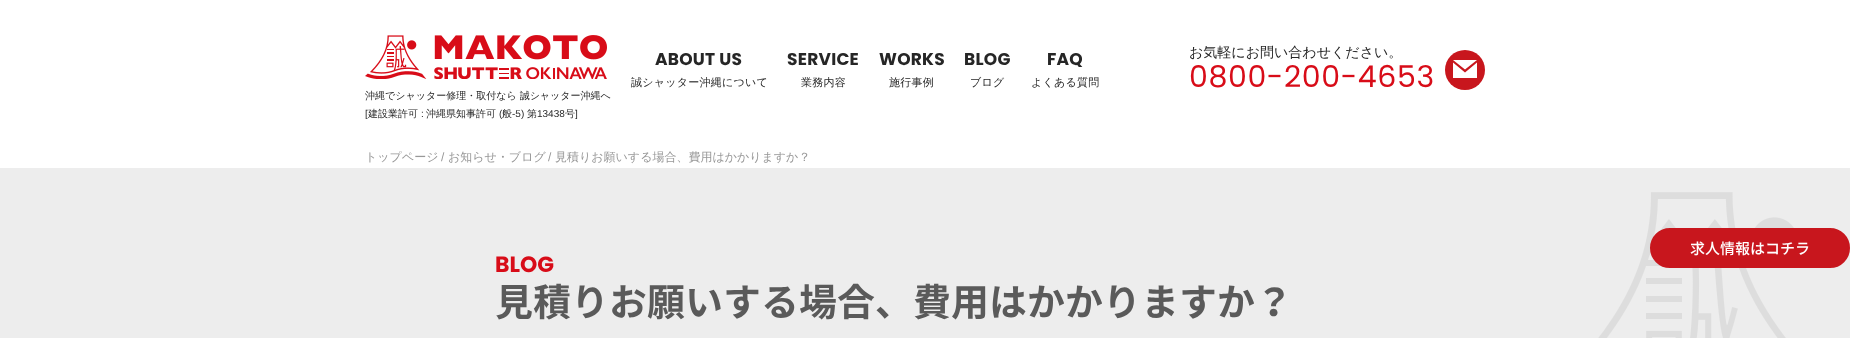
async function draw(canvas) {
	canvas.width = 1850;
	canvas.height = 338;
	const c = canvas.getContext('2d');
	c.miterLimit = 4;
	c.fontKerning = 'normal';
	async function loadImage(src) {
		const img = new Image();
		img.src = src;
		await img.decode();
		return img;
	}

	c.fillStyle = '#fff';
	c.fillRect(0, 0, 1850, 338);
	c.letterSpacing = '0.25px';
	c.font = 'bold 17px Poppins';
	c.fillStyle = '#262626';
	c.fillText('ABOUT US', 655, 65);
	c.font = '500 11px WenQuanYi Zen Hei';
	c.fillText('誠シャッター沖縄について', 631, 86);
	c.font = 'bold 17px Poppins';
	c.fillText('SERVICE', 787, 65);
	c.font = '500 11px WenQuanYi Zen Hei';
	c.fillText('業務内容', 801, 86);
	c.font = 'bold 17px Poppins';
	c.fillText('WORKS', 879, 65);
	c.font = '500 11px WenQuanYi Zen Hei';
	c.fillText('施行事例', 889, 86);
	c.font = 'bold 17px Poppins';
	c.fillText('BLOG', 964, 65);
	c.font = '500 11px WenQuanYi Zen Hei';
	c.fillText('ブログ', 970, 86);
	c.font = 'bold 17px Poppins';
	c.fillText('FAQ', 1047, 65);
	c.font = '500 11px WenQuanYi Zen Hei';
	c.fillText('よくある質問', 1031, 86);
	c.letterSpacing = '0px';
	c.font = '500 14px WenQuanYi Zen Hei';
	c.fillText('お気軽にお問い合わせください。', 1189, 57);
	c.fillStyle = '#c8161d';
	c.beginPath();
	c.arc(1465, 70, 20, 0, 2 * Math.PI);
	c.fill();
	c.fillStyle = '#fff';
	c.beginPath();
	c.moveTo(1465, 69.5);
	c.lineTo(1453, 60);
	c.lineTo(1477, 60);
	c.closePath();
	c.moveTo(1465, 72.5);
	c.lineTo(1453, 62.5);
	c.lineTo(1453, 78);
	c.lineTo(1477, 78);
	c.lineTo(1477, 62.5);
	c.closePath();
	c.fill();
	c.letterSpacing = '0.6px';
	c.font = '30px Poppins';
	c.fillStyle = '#d80c18';
	c.fillText('0800-200-4653', 1189, 87);
	c.drawImage(await loadImage('img1.png'), 365, 35, 242, 44);
	c.letterSpacing = '0px';
	c.font = '500 10px WenQuanYi Zen Hei';
	c.fillStyle = '#262626';
	c.fillText('沖縄でシャッター修理・取付なら 誠シャッター沖縄へ', 365, 99);
	c.font = '10px Liberation Sans';
	c.fillText('[', 365, 117);
	c.font = '500 10px WenQuanYi Zen Hei';
	c.fillText('建設業許可', 368, 117);
	c.font = '10px Liberation Sans';
	c.fillText(':', 421, 117);
	c.font = '500 10px WenQuanYi Zen Hei';
	c.fillText('沖縄県知事許可', 426, 117);
	c.font = '10px Liberation Sans';
	c.fillText('(', 499, 117);
	c.font = '500 10px WenQuanYi Zen Hei';
	c.fillText('般', 502, 117);
	c.font = '10px Liberation Sans';
	c.fillText('-5)', 512, 117);
	c.font = '500 10px WenQuanYi Zen Hei';
	c.fillText('第', 527, 117);
	c.font = '10px Liberation Sans';
	c.fillText('13438', 537, 117);
	c.font = '500 10px WenQuanYi Zen Hei';
	c.fillText('号', 565, 117);
	c.font = '10px Liberation Sans';
	c.fillText(']', 575, 117);
	c.fillStyle = '#ededed';
	c.fillRect(0, 168, 1850, 170);
	c.drawImage(await loadImage('img2.png'), 1598, 192, 196, 146);
	c.fillStyle = '#c8161d';
	c.beginPath();
	c.roundRect(1651, 229, 198, 38, 19);
	c.fill();
	c.strokeStyle = '#c8161d';
	c.lineWidth = 2;
	c.stroke();
	c.font = '500 15px Noto Sans JP';
	c.fillStyle = '#fff';
	c.fillText('求人情報はコチラ', 1690, 254);
	c.font = '500 12px WenQuanYi Zen Hei';
	c.fillStyle = '#989898';
	c.fillText('トップページ', 365, 161);
	c.font = '12px Liberation Sans';
	c.fillText('/', 441, 161);
	c.font = '500 12px WenQuanYi Zen Hei';
	c.fillText('お知らせ・ブログ', 448, 161);
	c.font = '12px Liberation Sans';
	c.fillText('/', 548, 161);
	c.font = '500 12px WenQuanYi Zen Hei';
	c.fillText('見積りお願いする場合、費用はかかりますか？', 555, 161);
	c.font = 'bold 22px Poppins';
	c.fillStyle = '#d80c18';
	c.fillText('BLOG', 495, 272);
	c.font = 'bold 38px Noto Sans JP';
	c.fillStyle = '#5a5a5a';
	c.fillText('見積りお願いする場合、費用はかかりますか？', 495, 316);
}

draw(document.querySelector('canvas'));
